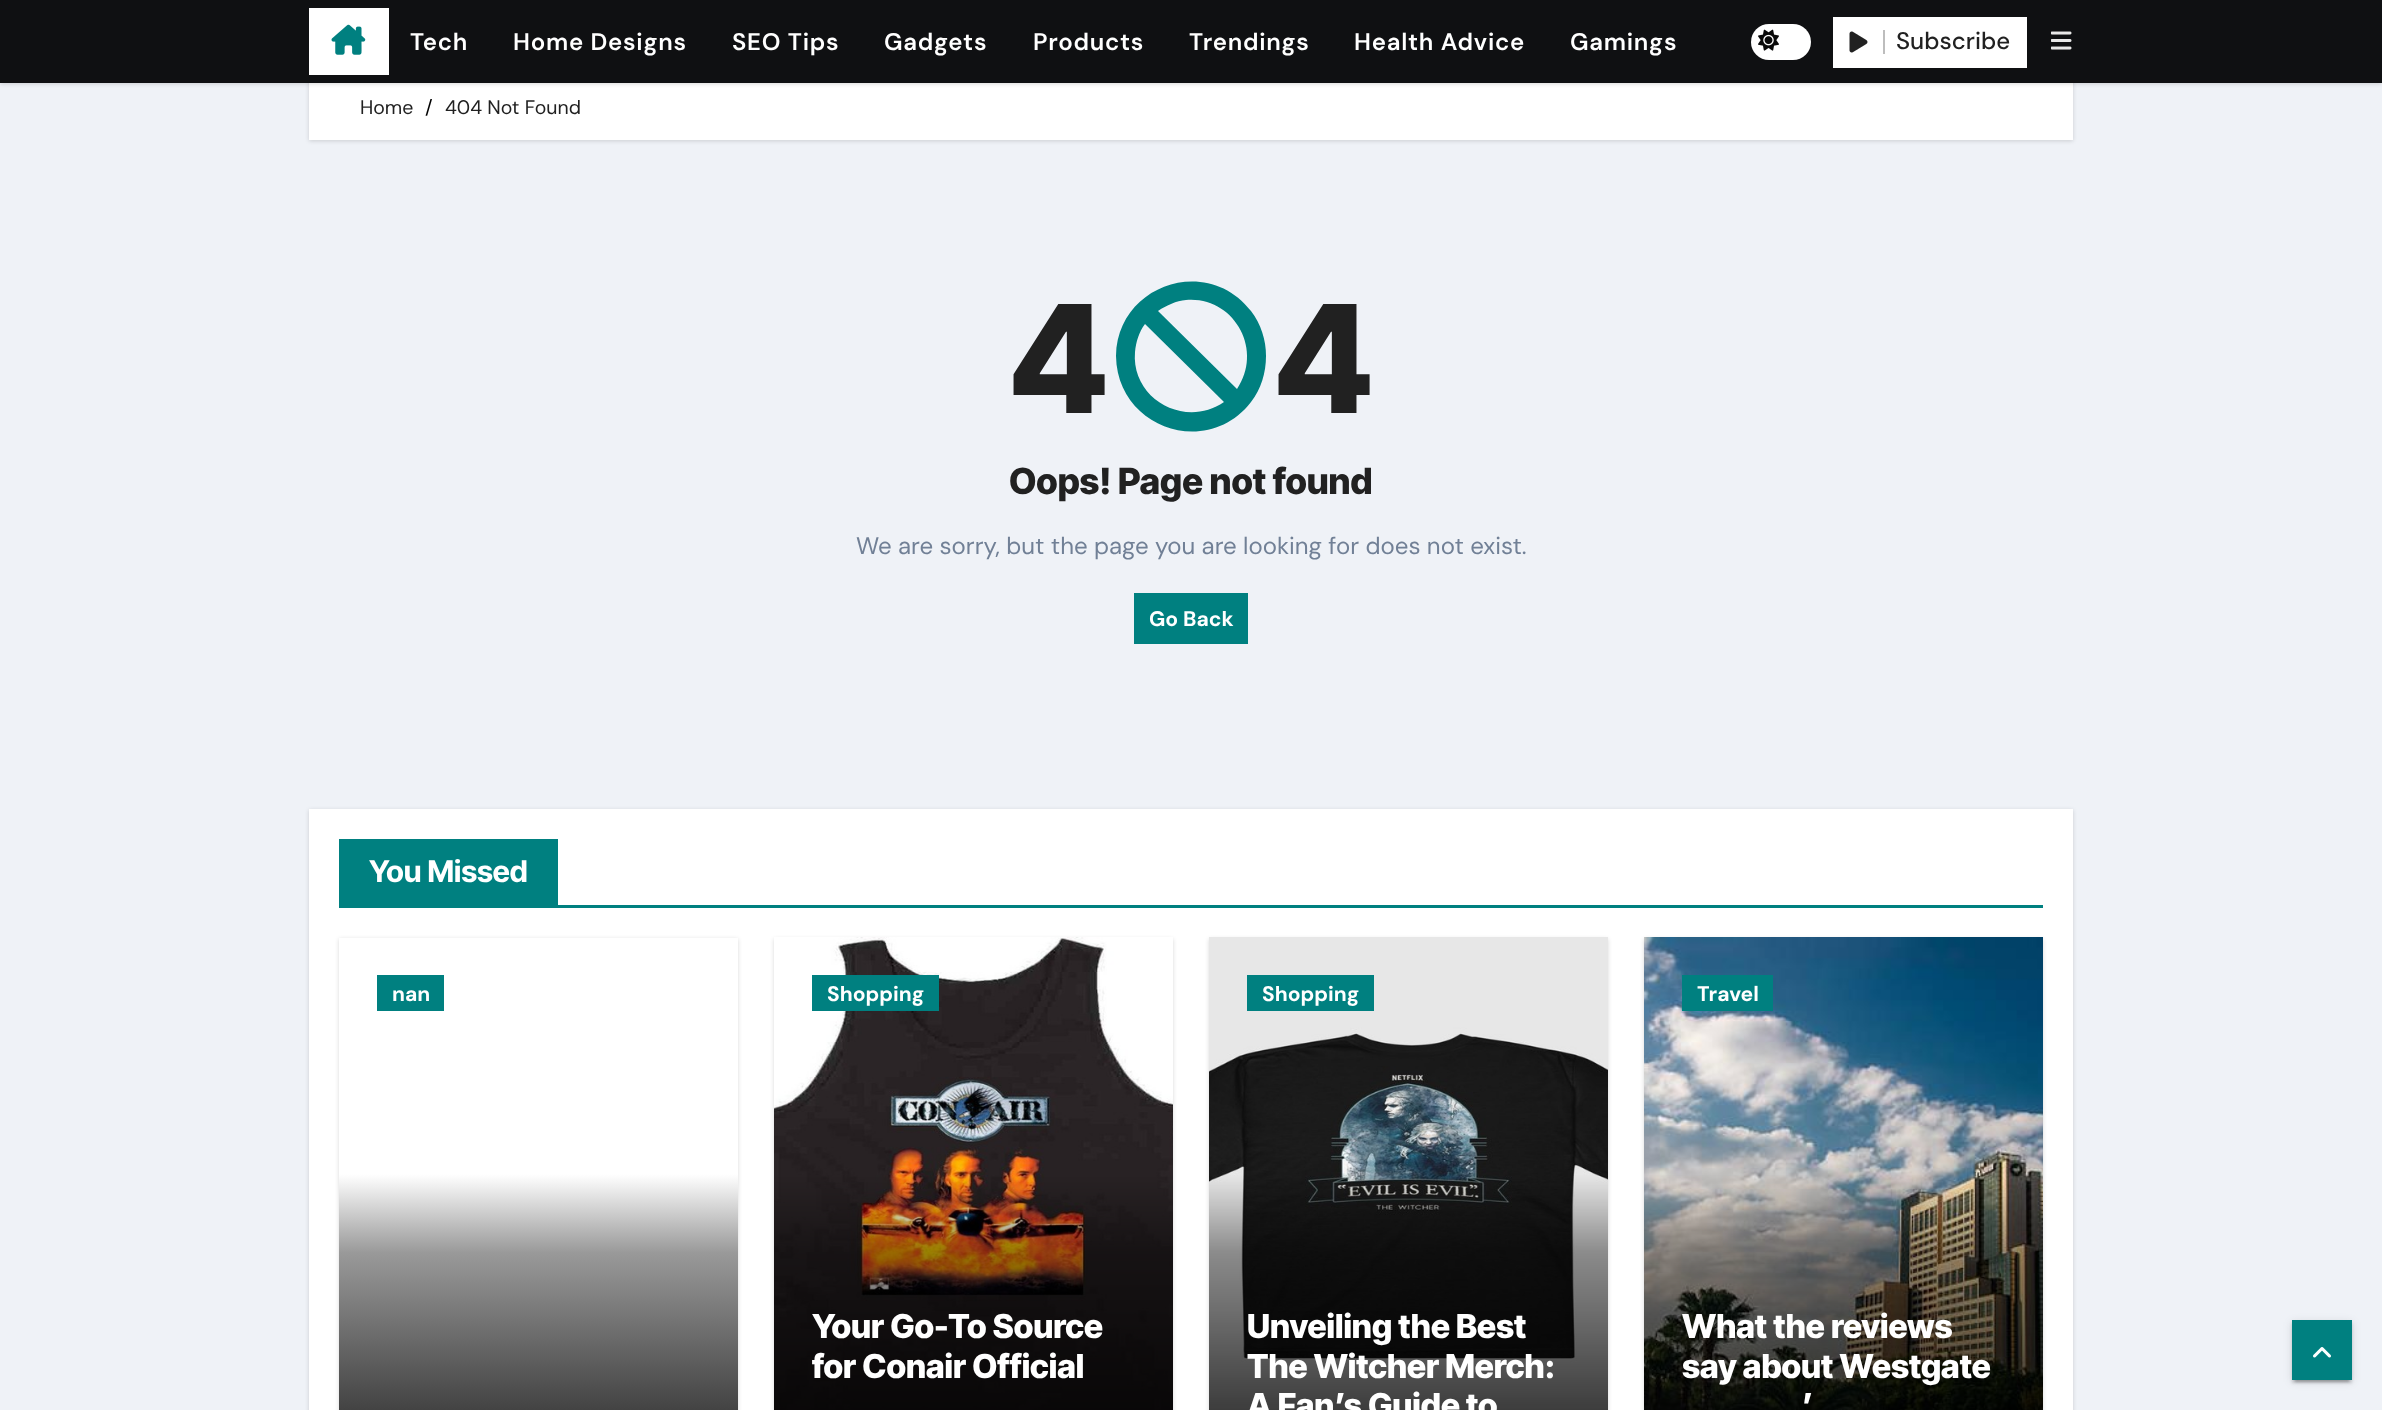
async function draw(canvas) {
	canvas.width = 2382;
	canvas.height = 1410;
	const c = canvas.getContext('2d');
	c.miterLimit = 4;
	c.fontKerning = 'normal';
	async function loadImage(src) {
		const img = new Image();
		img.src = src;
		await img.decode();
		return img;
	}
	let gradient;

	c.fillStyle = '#eff2f7';
	c.fillRect(0, 0, 2382, 1410);
	c.fillStyle = '#00000026';
	c.filter = 'blur(2px)';
	c.beginPath();
	c.rect(309, 77, 1764, 64);
	c.fill();
	c.filter = 'none';
	c.fillStyle = '#fff';
	c.fillRect(309, 83, 1764, 57);
	c.fillStyle = '#00000026';
	c.filter = 'blur(2px)';
	c.beginPath();
	c.rect(0, 2, 2382, 82);
	c.fill();
	c.filter = 'none';
	c.fillStyle = '#0f1012';
	c.fillRect(0, 0, 2382, 83);
	c.fillStyle = '#fff';
	c.fillRect(309, 8, 80, 67);
	c.drawImage(await loadImage('img1.png'), 331, 24, 35, 31);
	c.letterSpacing = '0.75px';
	c.font = '600 24px DM Sans';
	for (const [text, x, y] of [
		['Tech', 410, 50],
		['Home Designs', 513, 50],
		['SEO Tips', 732, 50],
		['Gadgets', 884, 50],
		['Products', 1033, 50],
		['Trendings', 1189, 50],
		['Health Advice', 1354, 50],
		['Gamings', 1570, 50],
	]) {
		c.fillText(text, x, y);
	}
	c.beginPath();
	c.roundRect(1751, 24, 60, 36, 18);
	c.fill();
	c.drawImage(await loadImage('img2.png'), 1758, 29, 21, 22);
	c.fillRect(1833, 17, 194, 51);
	c.drawImage(await loadImage('img3.png'), 1849, 31, 19, 22);
	c.fillStyle = '#bdbdbd';
	c.fillRect(1883, 30, 2, 24);
	c.letterSpacing = '0px';
	c.font = '500 24px DM Sans';
	c.fillStyle = '#212121';
	c.fillText('Subscribe', 1896, 49);
	c.drawImage(await loadImage('img4.png'), 2051, 31, 21, 19);
	c.font = '19.5px DM Sans';
	c.fillText('Home', 360, 114);
	c.fillStyle = '#000';
	c.fillText('/', 425, 114);
	c.fillStyle = '#212121';
	c.fillText('404 Not Found', 445, 114);
	c.font = '800 150px Inter Tight';
	c.fillText('4', 1009, 413);
	c.fillStyle = '#008080';
	c.beginPath();
	c.moveTo(1224, 402);
	c.lineTo(1145, 324);
	c.bezierCurveTo(1139, 332, 1136, 342, 1135, 352);
	c.bezierCurveTo(1131, 399, 1185, 429, 1224, 402);
	c.closePath();
	c.moveTo(1237, 389);
	c.bezierCurveTo(1264, 350, 1234, 296, 1186, 300);
	c.bezierCurveTo(1176, 301, 1167, 305, 1158, 311);
	c.closePath();
	c.moveTo(1116, 356);
	c.bezierCurveTo(1117, 285, 1207, 254, 1251, 311);
	c.bezierCurveTo(1261, 324, 1266, 340, 1266, 356);
	c.bezierCurveTo(1266, 373, 1261, 389, 1251, 402);
	c.bezierCurveTo(1207, 459, 1117, 428, 1116, 356);
	c.closePath();
	c.fill();
	c.fillStyle = '#212121';
	c.fillText('4', 1274, 413);
	c.font = '800 36px Inter Tight';
	c.fillText('Oops! Page not found', 1009, 494);
	c.font = '24px DM Sans';
	c.fillStyle = '#718096';
	c.fillText('We are sorry, but the page you are looking for does not exist.', 856, 554);
	c.fillStyle = '#008080';
	c.fillRect(1134, 593, 114, 51);
	c.font = 'bold 21px DM Sans';
	c.fillStyle = '#fff';
	c.fillText('Go Back', 1149, 626);
	c.fillStyle = '#00000026';
	c.filter = 'blur(2px)';
	c.beginPath();
	c.rect(309, 810, 1764, 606);
	c.fill();
	c.filter = 'none';
	for (const [x, y, w, h, color] of [
		[309, 809, 1764, 601, '#fff'],
		[339, 905, 1704, 3, '#008080'],
		[339, 839, 219, 66, '#008080'],
	]) {
		c.fillStyle = color;
		c.fillRect(x, y, w, h);
	}
	c.font = 'bold 30px Inter Tight';
	c.fillStyle = '#fff';
	c.fillText('You Missed', 369, 882);
	c.fillStyle = '#00000026';
	c.filter = 'blur(2px)';
	c.beginPath();
	c.rect(339, 939, 399, 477);
	c.fill();
	c.filter = 'none';
	gradient = c.createLinearGradient(539, 938, 539, 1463);
	gradient.addColorStop(0, '#fff');
	gradient.addColorStop(0.45, '#fff');
	gradient.addColorStop(0.6, '#999');
	gradient.addColorStop(1, '#262626');
	c.fillStyle = gradient;
	c.fillRect(339, 938, 399, 472);
	c.fillStyle = '#008080';
	c.fillRect(377, 975, 67, 36);
	c.font = 'bold 21px DM Sans';
	c.fillStyle = '#fff';
	c.fillText('nan', 392, 1001);
	c.fillStyle = '#00000026';
	c.filter = 'blur(2px)';
	c.beginPath();
	c.rect(774, 939, 399, 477);
	c.fill();
	c.filter = 'none';
	c.drawImage(await loadImage('img5.png'), 774, 937, 399, 473);
	c.fillStyle = '#008080';
	c.fillRect(812, 975, 127, 36);
	c.fillStyle = '#fff';
	c.fillText('Shopping', 827, 1001);
	c.font = '800 33px Inter Tight';
	c.fillText('Your Go-To Source', 812, 1338);
	c.save();
	c.beginPath();
	c.rect(812, 1307, 324, 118);
	c.clip();
	c.fillText('for Conair Official', 812, 1378);
	c.restore();
	c.fillStyle = '#00000026';
	c.filter = 'blur(2px)';
	c.beginPath();
	c.rect(1209, 939, 399, 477);
	c.fill();
	c.filter = 'none';
	c.drawImage(await loadImage('img6.png'), 1209, 937, 399, 473);
	c.fillStyle = '#008080';
	c.fillRect(1247, 975, 127, 36);
	c.font = 'bold 21px DM Sans';
	c.fillStyle = '#fff';
	c.fillText('Shopping', 1262, 1001);
	c.font = '800 33px Inter Tight';
	for (const [text, x, y] of [
		['Unveiling the Best', 1247, 1338],
		['The Witcher Merch:', 1247, 1378],
		['A Fan’s Guide to', 1247, 1417],
	]) {
		c.fillText(text, x, y);
	}
	c.fillStyle = '#00000026';
	c.filter = 'blur(2px)';
	c.beginPath();
	c.rect(1644, 939, 399, 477);
	c.fill();
	c.filter = 'none';
	c.drawImage(await loadImage('img7.png'), 1644, 937, 399, 473);
	c.fillStyle = '#008080';
	c.fillRect(1682, 975, 91, 36);
	c.font = 'bold 21px DM Sans';
	c.fillStyle = '#fff';
	c.fillText('Travel', 1697, 1001);
	c.font = '800 33px Inter Tight';
	for (const [text, x, y] of [
		['What the reviews', 1682, 1338],
		['say about Westgate', 1682, 1378],
		['’', 1802, 1417],
	]) {
		c.fillText(text, x, y);
	}
	c.fillStyle = '#0000001f';
	c.filter = 'blur(4px)';
	c.beginPath();
	c.rect(2292, 1322, 60, 60);
	c.fill();
	c.filter = 'none';
	c.fillStyle = '#00000033';
	c.filter = 'blur(1px)';
	c.beginPath();
	c.rect(2295, 1328, 54, 54);
	c.fill();
	c.filter = 'none';
	c.fillStyle = '#00000024';
	c.filter = 'blur(1.5px)';
	c.beginPath();
	c.rect(2292, 1323, 60, 60);
	c.fill();
	c.filter = 'none';
	c.fillStyle = '#008080';
	c.fillRect(2292, 1320, 60, 60);
	c.drawImage(await loadImage('img8.png'), 2313, 1347, 18, 11);
}

draw(document.querySelector('canvas'));
